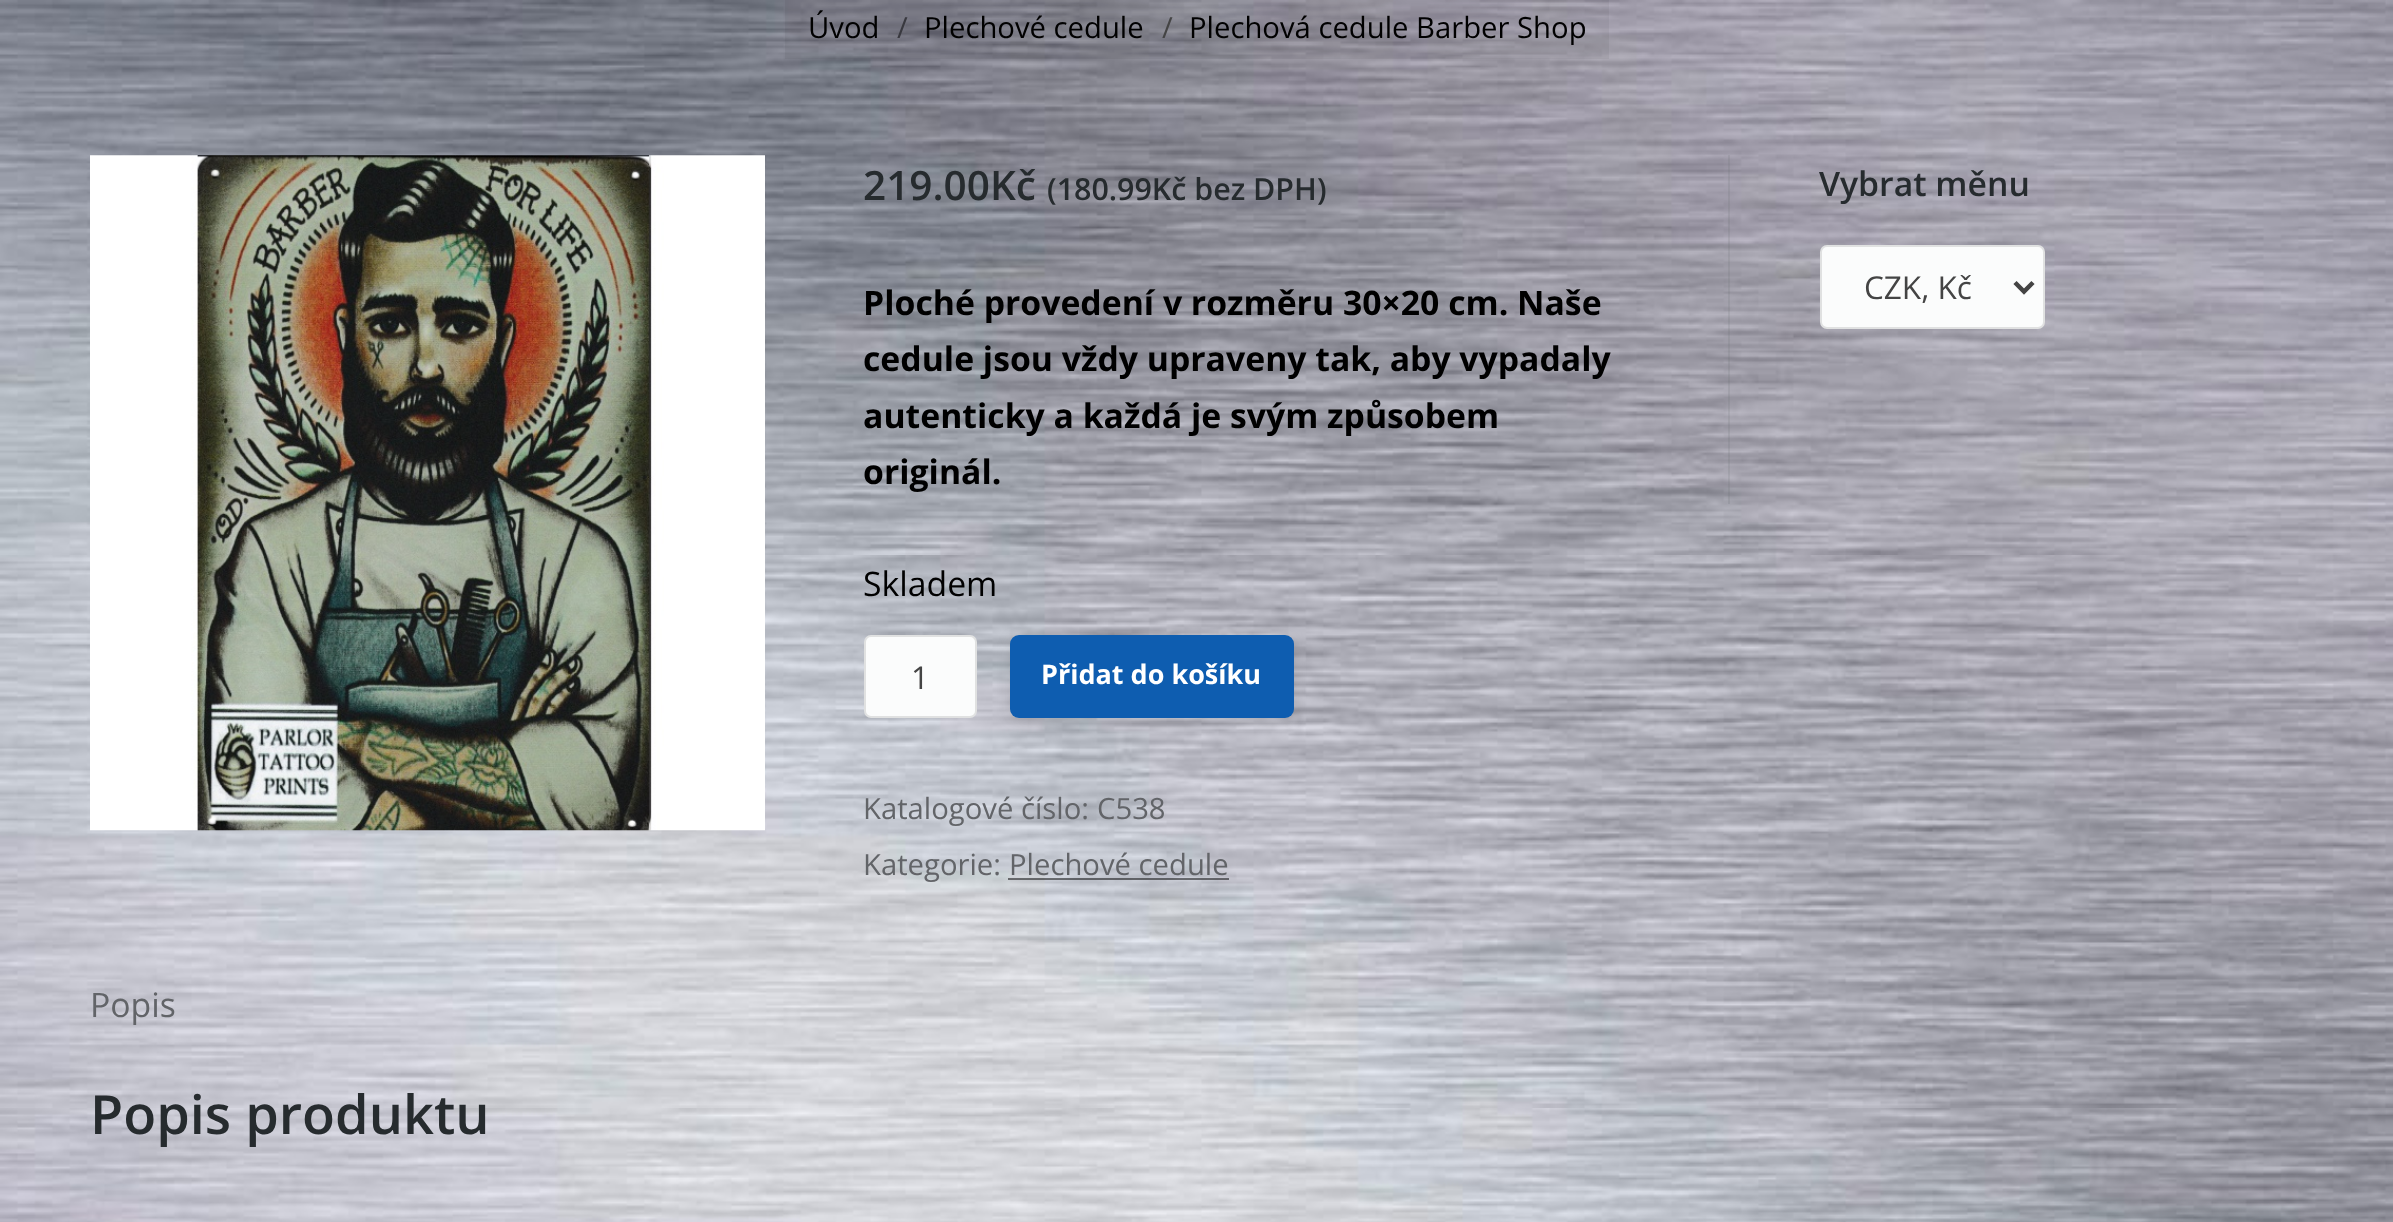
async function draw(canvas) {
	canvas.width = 2393;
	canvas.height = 1222;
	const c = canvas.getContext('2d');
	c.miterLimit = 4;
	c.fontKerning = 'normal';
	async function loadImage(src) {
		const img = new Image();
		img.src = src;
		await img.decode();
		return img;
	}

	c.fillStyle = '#fff';
	c.fillRect(0, 0, 2393, 1222);
	c.drawImage(await loadImage('img1.png'), 0, 0, 2393, 1222);
	c.fillStyle = '#0000000d';
	c.fillRect(785, 0, 824, 59);
	c.font = '29.25px Open Sans';
	c.fillStyle = '#000';
	c.fillText('Úvod', 808, 38);
	c.fillStyle = '#39393f';
	c.fillText('/', 897, 38);
	c.fillStyle = '#000';
	c.fillText('Plechové cedule', 924, 38);
	c.fillStyle = '#444';
	c.fillText('/', 1162, 38);
	c.fillStyle = '#000';
	c.fillText('Plechová cedule Barber Shop', 1189, 38);
	c.drawImage(await loadImage('img2.png'), 90, 155, 675, 676);
	c.font = '600 40.5px Open Sans';
	c.fillStyle = '#262b2e';
	c.fillText('219.00Kč', 863, 200);
	c.font = '600 30.4px Open Sans';
	c.fillText('(180.99Kč bez DPH)', 1047, 200);
	c.font = 'bold 33.75px Open Sans';
	c.fillStyle = '#000';
	for (const [text, x, y] of [
		['Ploché provedení v rozměru 30×20 cm. Naše', 863, 315],
		['cedule jsou vždy upraveny tak, aby vypadaly', 863, 371],
		['autenticky a každá je svým způsobem', 863, 428],
		['originál.', 863, 484],
	]) {
		c.fillText(text, x, y);
	}
	c.font = '33.75px Open Sans';
	c.fillText('Skladem', 863, 596);
	c.fillStyle = '#fbfcfc';
	c.beginPath();
	c.roundRect(865, 636, 111, 81, 6);
	c.fill();
	c.strokeStyle = '#e0e1e1';
	c.lineWidth = 2;
	c.stroke();
	c.font = '31.5px Open Sans';
	c.fillStyle = '#444';
	c.fillText('1', 911, 689);
	c.fillStyle = '#0000001f';
	c.filter = 'blur(7px)';
	c.beginPath();
	c.roundRect(1010, 637, 284, 83, 9);
	c.fill();
	c.filter = 'none';
	c.fillStyle = '#0e5db0';
	c.beginPath();
	c.roundRect(1010, 635, 284, 83, 9);
	c.fill();
	c.font = 'bold 27px Open Sans';
	c.fillStyle = '#fff';
	c.fillText('Přidat do košíku', 1041, 684);
	c.font = '29.25px Open Sans';
	c.fillStyle = '#626468';
	for (const [text, x, y] of [
		['Katalogové číslo:', 863, 819],
		['C538', 1097, 819],
		['Kategorie:', 863, 875],
		['Plechové cedule', 1009, 875],
	]) {
		c.fillText(text, x, y);
	}
	c.fillStyle = '#00000080';
	c.fillRect(1008, 878, 221, 2);
	c.font = '33.75px Open Sans';
	c.fillStyle = '#626468';
	c.fillText('Popis', 90, 1017);
	c.font = '600 54px Open Sans';
	c.fillStyle = '#262b2e';
	c.fillText('Popis produktu', 90, 1134);
	c.fillStyle = '#676b6d26';
	c.fillRect(1728, 155, 2, 349);
	c.font = '600 33.75px Open Sans';
	c.fillStyle = '#262b2e';
	c.fillText('Vybrat měnu', 1819, 196);
	c.fillStyle = '#fbfcfc';
	c.beginPath();
	c.roundRect(1821, 246, 223, 82, 6);
	c.fill();
	c.stroke();
	c.beginPath();
	c.moveTo(2015, 282.5);
	c.lineTo(2024, 291.5);
	c.lineTo(2033, 282.5);
	c.strokeStyle = '#444';
	c.lineWidth = 4.5;
	c.stroke();
	c.font = '31.5px Open Sans';
	c.fillStyle = '#444';
	c.fillText('CZK, Kč', 1864, 299);
}

draw(document.querySelector('canvas'));
